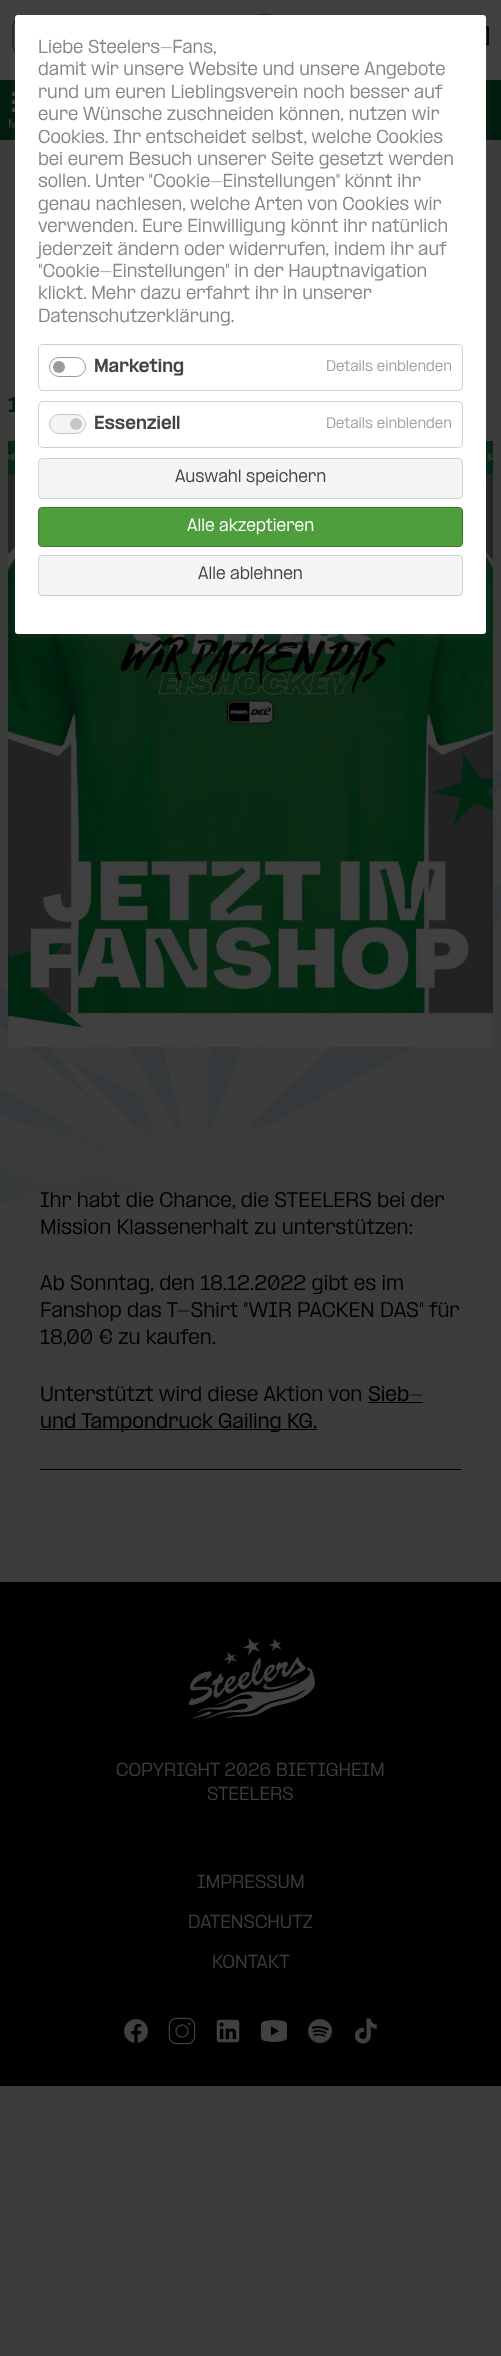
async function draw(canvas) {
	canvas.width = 501;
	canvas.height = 2356;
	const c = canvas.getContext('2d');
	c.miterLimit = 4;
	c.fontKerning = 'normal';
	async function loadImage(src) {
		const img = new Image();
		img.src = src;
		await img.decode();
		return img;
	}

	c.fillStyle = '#3c3c3b';
	c.fillRect(0, 0, 501, 2356);
	c.fillStyle = '#404040';
	c.fillRect(0, 0, 501, 80);
	c.drawImage(await loadImage('img1.png'), 12, 19, 3, 34);
	c.drawImage(await loadImage('img2.png'), 258, 13, 14, 2);
	c.drawImage(await loadImage('img3.png'), 486, 26, 3, 20);
	for (const [x, y, w, h, color] of [
		[0, 80, 501, 60, '#011b0e'],
		[12, 108, 3, 4, '#404040'],
		[12, 92, 3, 4, '#404040'],
		[12, 100, 3, 4, '#404040'],
	]) {
		c.fillStyle = color;
		c.fillRect(x, y, w, h);
	}
	c.drawImage(await loadImage('img5.png'), 0, 771, 501, 431);
	c.drawImage(await loadImage('img4.png'), 8, 441, 485, 606);
	c.fillStyle = '#63636333';
	c.filter = 'blur(4px)';
	c.beginPath();
	c.roundRect(15, 17, 471, 619, 3);
	c.fill();
	c.filter = 'none';
	c.letterSpacing = '1px';
	c.font = '500 11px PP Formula';
	c.fillStyle = '#3c3c3b';
	c.fillText('M', 8, 128);
	c.letterSpacing = '0px';
	c.font = '800 18px PP Formula';
	c.fillStyle = '#011b0e';
	c.fillText('1', 8, 412);
	c.fillStyle = '#fff';
	c.beginPath();
	c.roundRect(15, 15, 471, 619, 3);
	c.fill();
	c.font = '16px PP Formula';
	c.fillStyle = '#868686';
	for (const [text, x, y] of [
		['Liebe Steelers-Fans,', 38, 53],
		['damit wir unsere Website und unsere Angebote', 38, 75],
		['rund um euren Lieblingsverein noch besser auf', 38, 98],
		['eure Wünsche zuschneiden können, nutzen wir', 38, 120],
		['Cookies. Ihr entscheidet selbst, welche Cookies', 38, 143],
		['bei eurem Besuch unserer Seite gesetzt werden', 38, 165],
		['sollen. Unter "Cookie-Einstellungen" könnt ihr', 38, 187],
		['genau nachlesen, welche Arten von Cookies wir', 38, 210],
		['verwenden. Eure Einwilligung könnt ihr natürlich', 38, 232],
		['jederzeit ändern oder widerrufen, indem ihr auf', 38, 255],
		['"Cookie-Einstellungen" in der Hauptnavigation', 38, 277],
		['klickt. Mehr dazu erfahrt ihr in unserer', 38, 299],
		['Datenschutzerklärung.', 38, 322],
	]) {
		c.fillText(text, x, y);
	}
	c.beginPath();
	c.roundRect(38.5, 344.5, 424, 46, 4.5);
	c.strokeStyle = '#d0d0d0';
	c.stroke();
	c.beginPath();
	c.roundRect(49.5, 357.5, 36, 19, 9.5);
	c.strokeStyle = '#9c9b99';
	c.stroke();
	c.font = '800 16px PP Formula';
	c.fillStyle = '#444';
	c.fillText('Marketing', 94, 372);
	c.fillStyle = '#9c9b99';
	c.beginPath();
	c.arc(59, 367, 6, 0, 2 * Math.PI);
	c.fill();
	c.font = '13px PP Formula';
	c.fillStyle = '#a2a2a2';
	c.fillText('Details einblenden', 326, 371);
	c.beginPath();
	c.roundRect(38.5, 401.5, 424, 46, 4.5);
	c.strokeStyle = '#d0d0d0';
	c.stroke();
	c.fillStyle = '#f4f4f4';
	c.beginPath();
	c.roundRect(49.5, 414.5, 36, 19, 9.5);
	c.fill();
	c.strokeStyle = '#c8c7c5';
	c.stroke();
	c.font = '800 16px PP Formula';
	c.fillStyle = '#444';
	c.fillText('Essenziell', 94, 429);
	c.fillStyle = '#c8c7c5';
	c.beginPath();
	c.arc(76, 424, 6, 0, 2 * Math.PI);
	c.fill();
	c.font = '13px PP Formula';
	c.fillStyle = '#a2a2a2';
	c.fillText('Details einblenden', 326, 428);
	c.fillStyle = '#f5f5f5';
	c.beginPath();
	c.roundRect(38.5, 458.5, 424, 40, 3.5);
	c.fill();
	c.strokeStyle = '#cfcfcf';
	c.stroke();
	c.font = '15px PP Formula';
	c.fillStyle = '#444';
	c.fillText('Auswahl speichern', 175, 482);
	c.fillStyle = '#4e9e3e';
	c.beginPath();
	c.roundRect(38.5, 507.5, 424, 39, 3.5);
	c.fill();
	c.strokeStyle = '#3e7830';
	c.stroke();
	c.fillStyle = '#fff';
	c.fillText('Alle akzeptieren', 187, 531);
	c.fillStyle = '#f5f5f5';
	c.beginPath();
	c.roundRect(38.5, 555.5, 424, 40, 3.5);
	c.fill();
	c.strokeStyle = '#cfcfcf';
	c.stroke();
	c.fillStyle = '#444';
	c.fillText('Alle ablehnen', 198, 579);
	c.fillStyle = '#3c3c3b99';
	c.fillRect(8, 1127, 256, 74);
	c.font = '18px PP Formula';
	c.fillStyle = '#000';
	for (const [text, x, y] of [
		['Ihr habt die Chance, die STEELERS bei der', 40, 1207],
		['Mission Klassenerhalt zu unterstützen:', 40, 1234],
		['Ab Sonntag, den 18.12.2022 gibt es im', 40, 1290],
		['Fanshop das T-Shirt "WIR PACKEN DAS" für', 40, 1317],
		['18,00 € zu kaufen.', 40, 1344],
		['Unterstützt wird diese Aktion von', 40, 1401],
	]) {
		c.fillText(text, x, y);
	}
	c.font = '500 18px PP Formula';
	c.fillText('Sieb-', 368, 1401);
	c.fillRect(368, 1402, 55, 1);
	c.fillRect(40, 1429, 277, 1);
	c.fillText('und Tampondruck Gailing KG.', 40, 1428);
	c.fillRect(40, 1469, 421, 1);
	c.fillRect(0, 1582, 501, 504);
	c.drawImage(await loadImage('img6.png'), 188, 1638, 127, 82);
	c.font = '16px PP Formula';
	c.fillStyle = '#3c3c3b';
	for (const [text, x, y] of [
		['COPYRIGHT 2026 BIETIGHEIM', 116, 1776],
		['STEELERS', 207, 1800],
		['IMPRESSUM', 197, 1888],
		['DATENSCHUTZ', 188, 1928],
		['KONTAKT', 212, 1968],
	]) {
		c.fillText(text, x, y);
	}
	c.drawImage(await loadImage('img7.png'), 124, 2019, 24, 24);
	c.drawImage(await loadImage('img8.png'), 168, 2017, 28, 28);
	c.drawImage(await loadImage('img9.png'), 216, 2019, 24, 24);
	c.drawImage(await loadImage('img10.png'), 261, 2020, 26, 22);
	c.drawImage(await loadImage('img11.png'), 308, 2019, 24, 24);
	c.drawImage(await loadImage('img12.png'), 354, 2018, 23, 26);
}

draw(document.querySelector('canvas'));
